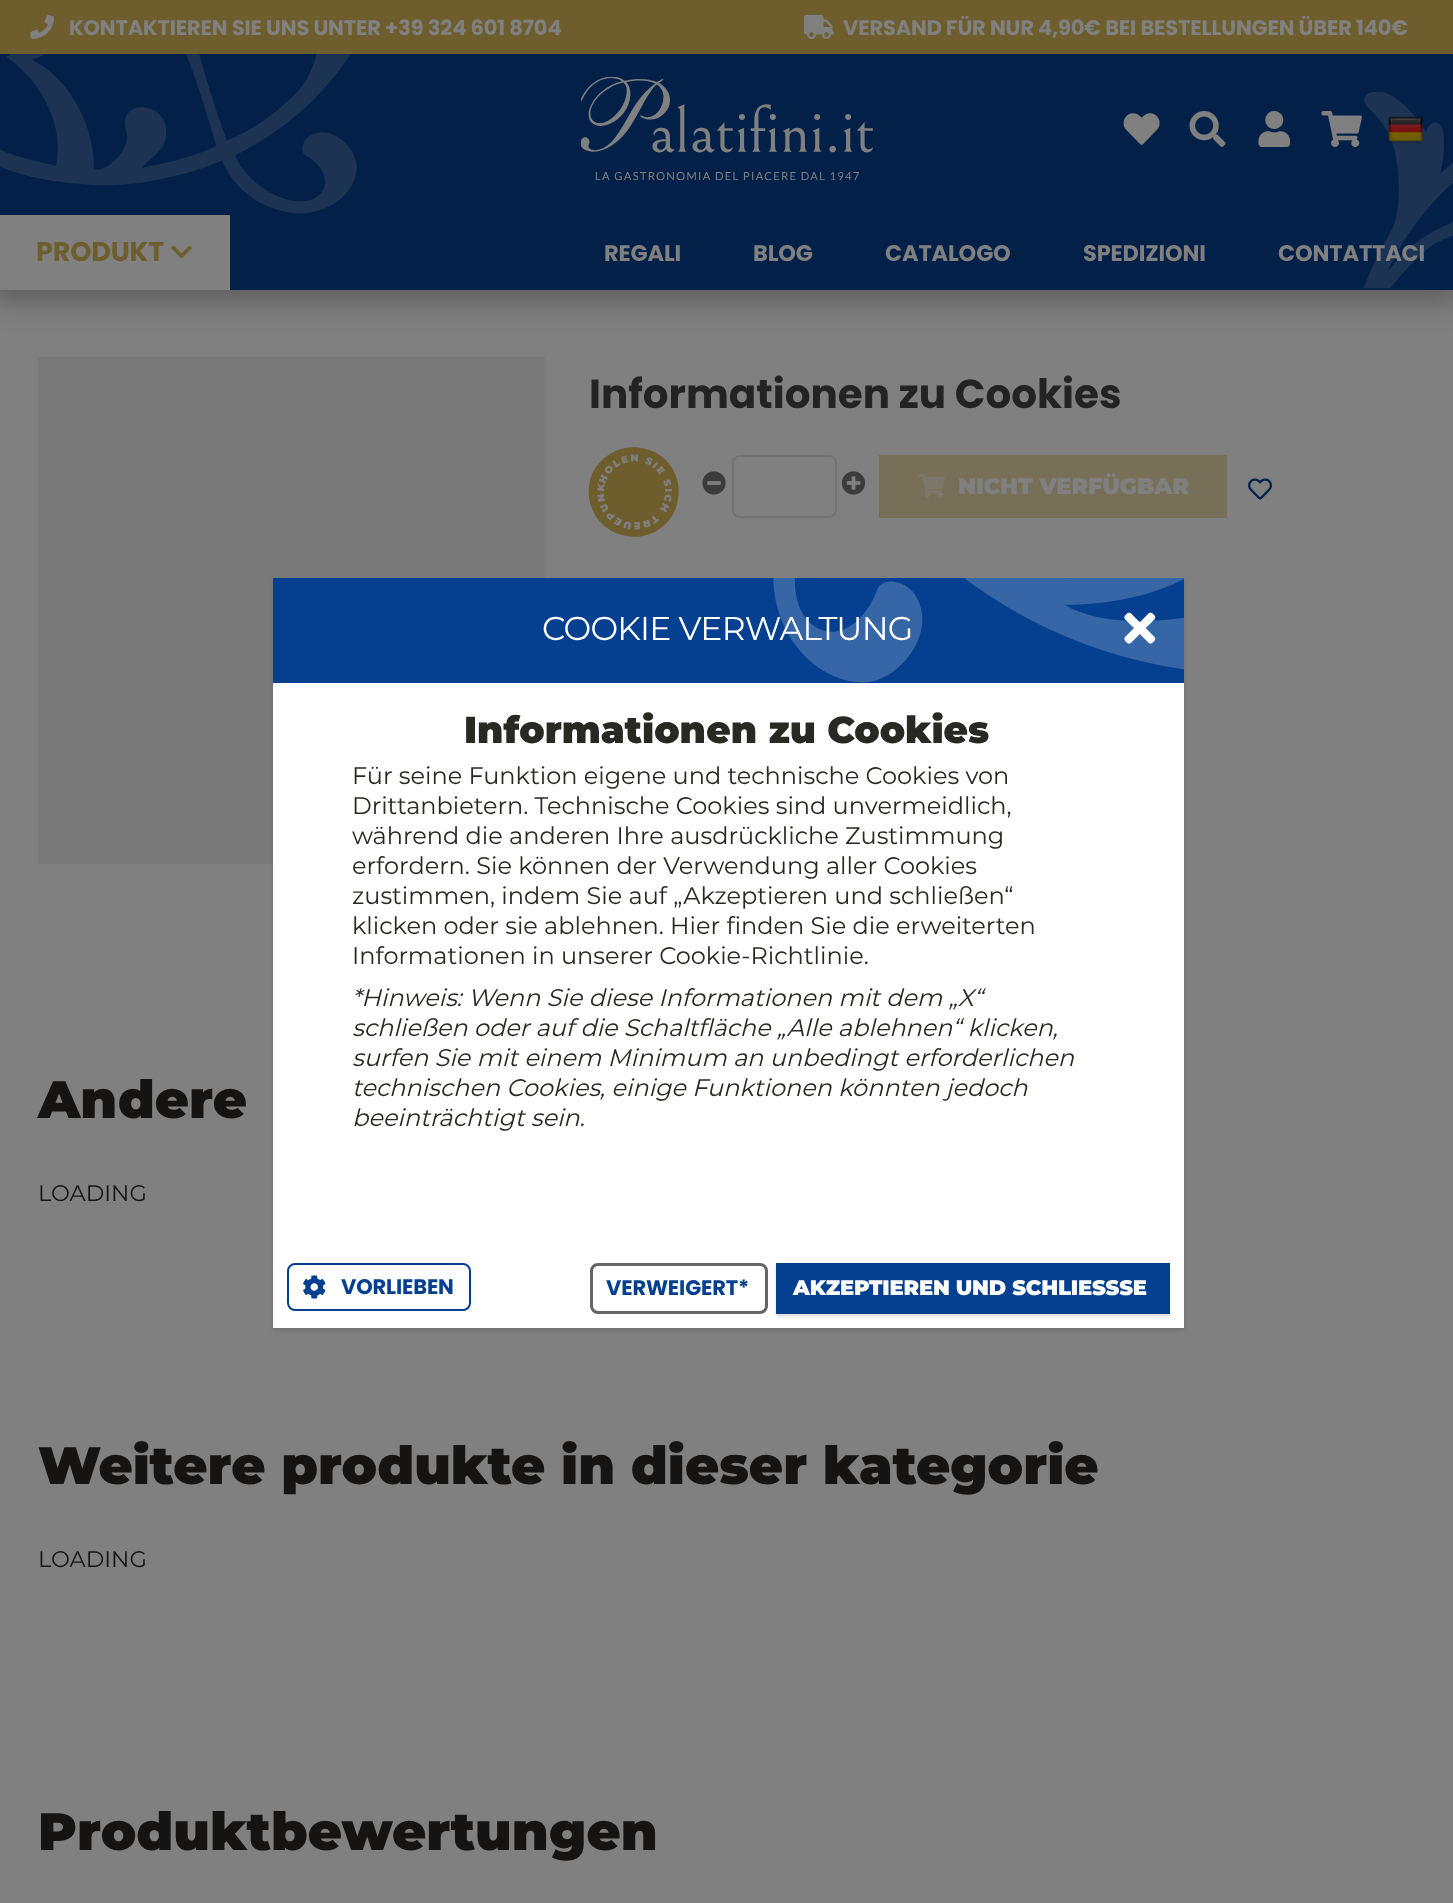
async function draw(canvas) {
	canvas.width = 1453;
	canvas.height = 1903;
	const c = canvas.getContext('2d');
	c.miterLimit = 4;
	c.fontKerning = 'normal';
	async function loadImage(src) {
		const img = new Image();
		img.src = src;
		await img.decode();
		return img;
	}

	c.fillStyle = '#808080';
	c.fillRect(0, 0, 1453, 1903);
	c.fillStyle = '#6e5e2d';
	c.fillRect(0, 0, 1453, 54);
	c.drawImage(await loadImage('img1.png'), 30, 15, 25, 24);
	c.letterSpacing = '-0.15px';
	c.font = 'bold 21px Poppins';
	c.fillStyle = '#808080';
	c.fillText('KONTAKTIEREN SIE UNS UNTER +39 324 601 8704', 69, 35);
	c.drawImage(await loadImage('img2.png'), 804, 15, 30, 24);
	c.fillText('VERSAND FÜR NUR 4,90€ BEI BESTELLUNGEN ÜBER 140€', 843, 35);
	c.fillStyle = '#0000004d';
	c.filter = 'blur(15px)';
	c.beginPath();
	c.rect(-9, 195, 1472, 104);
	c.fill();
	c.filter = 'none';
	c.fillStyle = '#032048';
	c.fillRect(0, 54, 1453, 236);
	c.drawImage(await loadImage('img3.png'), 0, 54, 357, 160);
	c.drawImage(await loadImage('img4.png'), 581, 77, 293, 104);
	c.drawImage(await loadImage('img5.png'), 1123, 113, 37, 32);
	c.drawImage(await loadImage('img6.png'), 1189, 111, 37, 36);
	c.drawImage(await loadImage('img7.png'), 1258, 111, 32, 36);
	c.drawImage(await loadImage('img8.png'), 1321, 111, 41, 36);
	c.font = 'bold 22.5px Poppins';
	c.fillStyle = '#808080';
	c.fillText('CONTATTACI', 1278, 261);
	c.drawImage(await loadImage('img10.png'), 1363, 92, 90, 196);
	c.drawImage(await loadImage('img9.png'), 1387, 116, 37, 28);
	c.fillRect(0, 215, 230, 75);
	c.font = 'bold 27px Poppins';
	c.fillStyle = '#6e5e2d';
	c.fillText('PRODUKT', 36, 261);
	c.drawImage(await loadImage('img11.png'), 171, 245, 21, 14);
	c.font = 'bold 22.5px Poppins';
	c.fillStyle = '#808080';
	for (const [text, x, y] of [
		['REGALI', 604, 261],
		['BLOG', 753, 261],
		['CATALOGO', 885, 261],
		['SPEDIZIONI', 1083, 261],
	]) {
		c.fillText(text, x, y);
	}
	c.fillStyle = '#797979';
	c.fillRect(38, 357, 507, 507);
	c.letterSpacing = '0px';
	c.font = 'bold 40.5px Poppins';
	c.fillStyle = '#232323';
	c.fillText('Informationen zu Cookies', 589, 408);
	c.fillStyle = '#6e5e2d';
	c.beginPath();
	c.moveTo(646, 449);
	c.bezierCurveTo(670, 455, 684, 480, 677, 504);
	c.bezierCurveTo(671, 528, 646, 542, 622, 535);
	c.bezierCurveTo(598, 529, 584, 504, 590, 480);
	c.bezierCurveTo(597, 456, 622, 442, 646, 449);
	c.closePath();
	c.fill();
	c.drawImage(await loadImage('img12.png'), 597, 454, 75, 76);
	c.drawImage(await loadImage('img13.png'), 702, 471, 24, 24);
	c.beginPath();
	c.roundRect(733, 456, 103, 61, 7);
	c.strokeStyle = '#737373';
	c.lineWidth = 2;
	c.stroke();
	c.drawImage(await loadImage('img14.png'), 841, 471, 25, 24);
	c.fillStyle = '#776f57';
	c.fillRect(879, 455, 348, 63);
	c.drawImage(await loadImage('img15.png'), 918, 474, 27, 24);
	c.letterSpacing = '-0.15px';
	c.font = '100 22.5px Montserrat';
	c.fillStyle = '#808080';
	c.fillText('NICHT VERFÜGBAR', 958, 494);
	c.drawImage(await loadImage('img16.png'), 1248, 478, 25, 22);
	c.letterSpacing = '0px';
	c.font = '100 52.5px Montserrat';
	c.fillStyle = '#151412';
	c.fillText('Andere', 38, 1118);
	c.font = '100 22.5px "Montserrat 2"';
	c.fillText('LOADING', 38, 1201);
	c.font = '100 52.5px Montserrat';
	c.fillText('Weitere produkte in dieser kategorie', 38, 1484);
	c.font = '100 22.5px "Montserrat 2"';
	c.fillText('LOADING', 38, 1567);
	c.font = '100 52.5px Montserrat';
	c.fillText('Produktbewertungen', 38, 1850);
	c.fillStyle = '#0000001a';
	c.filter = 'blur(2px)';
	c.beginPath();
	c.rect(273, 581, 911, 750);
	c.fill();
	c.filter = 'none';
	c.fillStyle = '#fff';
	c.fillRect(273, 683, 911, 645);
	c.fillStyle = '#054090';
	c.fillRect(273, 578, 911, 105);
	c.letterSpacing = '-0.75px';
	c.font = '100 33px "Montserrat 2"';
	c.fillStyle = '#fff';
	c.fillText('COOKIE VERWALTUNG', 542, 640);
	c.drawImage(await loadImage('img18.png'), 773, 578, 411, 105);
	c.drawImage(await loadImage('img17.png'), 1124, 612, 32, 32);
	c.letterSpacing = '0px';
	c.font = '100 37.5px Montserrat';
	c.fillStyle = '#2a2823';
	c.fillText('Informationen zu Cookies', 464, 743);
	c.font = '100 24px "Montserrat 2"';
	for (const [text, x, y] of [
		['Für seine Funktion eigene und technische Cookies von', 352, 784],
		['Drittanbietern. Technische Cookies sind unvermeidlich,', 352, 814],
		['während die anderen Ihre ausdrückliche Zustimmung', 352, 844],
		['erfordern. Sie können der Verwendung aller Cookies', 352, 874],
		['zustimmen, indem Sie auf „Akzeptieren und schließen“', 352, 904],
		['klicken oder sie ablehnen. Hier finden Sie die erweiterten', 352, 934],
		['Informationen in unserer Cookie-Richtlinie.', 352, 964],
	]) {
		c.fillText(text, x, y);
	}
	c.font = 'italic 100 24px Montserrat';
	for (const [text, x, y] of [
		['*Hinweis: Wenn Sie diese Informationen mit dem „X“', 352, 1006],
		['schließen oder auf die Schaltfläche „Alle ablehnen“ klicken,', 352, 1036],
		['surfen Sie mit einem Minimum an unbedingt erforderlichen', 352, 1066],
		['technischen Cookies, einige Funktionen könnten jedoch', 352, 1096],
		['beeinträchtigt sein.', 352, 1126],
	]) {
		c.fillText(text, x, y);
	}
	c.beginPath();
	c.roundRect(288, 1264, 182, 46, 7);
	c.strokeStyle = '#054090';
	c.stroke();
	c.drawImage(await loadImage('img19.png'), 303, 1275, 23, 24);
	c.letterSpacing = '-0.15px';
	c.font = 'bold 21px Poppins';
	c.fillStyle = '#054090';
	c.fillText('VORLIEBEN', 341, 1294);
	c.beginPath();
	c.roundRect(591.5, 1264.5, 175, 48, 6.5);
	c.strokeStyle = '#656565';
	c.lineWidth = 3;
	c.stroke();
	c.fillText('VERWEIGERT*', 606, 1295);
	c.fillStyle = '#0000001f';
	c.filter = 'blur(1.5px)';
	c.beginPath();
	c.rect(776, 1266, 394, 51);
	c.fill();
	c.filter = 'none';
	c.fillStyle = '#054090';
	c.fillRect(776, 1263, 394, 51);
	c.font = '100 21px Montserrat';
	c.fillStyle = '#fff';
	c.fillText('AKZEPTIEREN UND SCHLIESSSE', 793, 1295);
}

draw(document.querySelector('canvas'));
